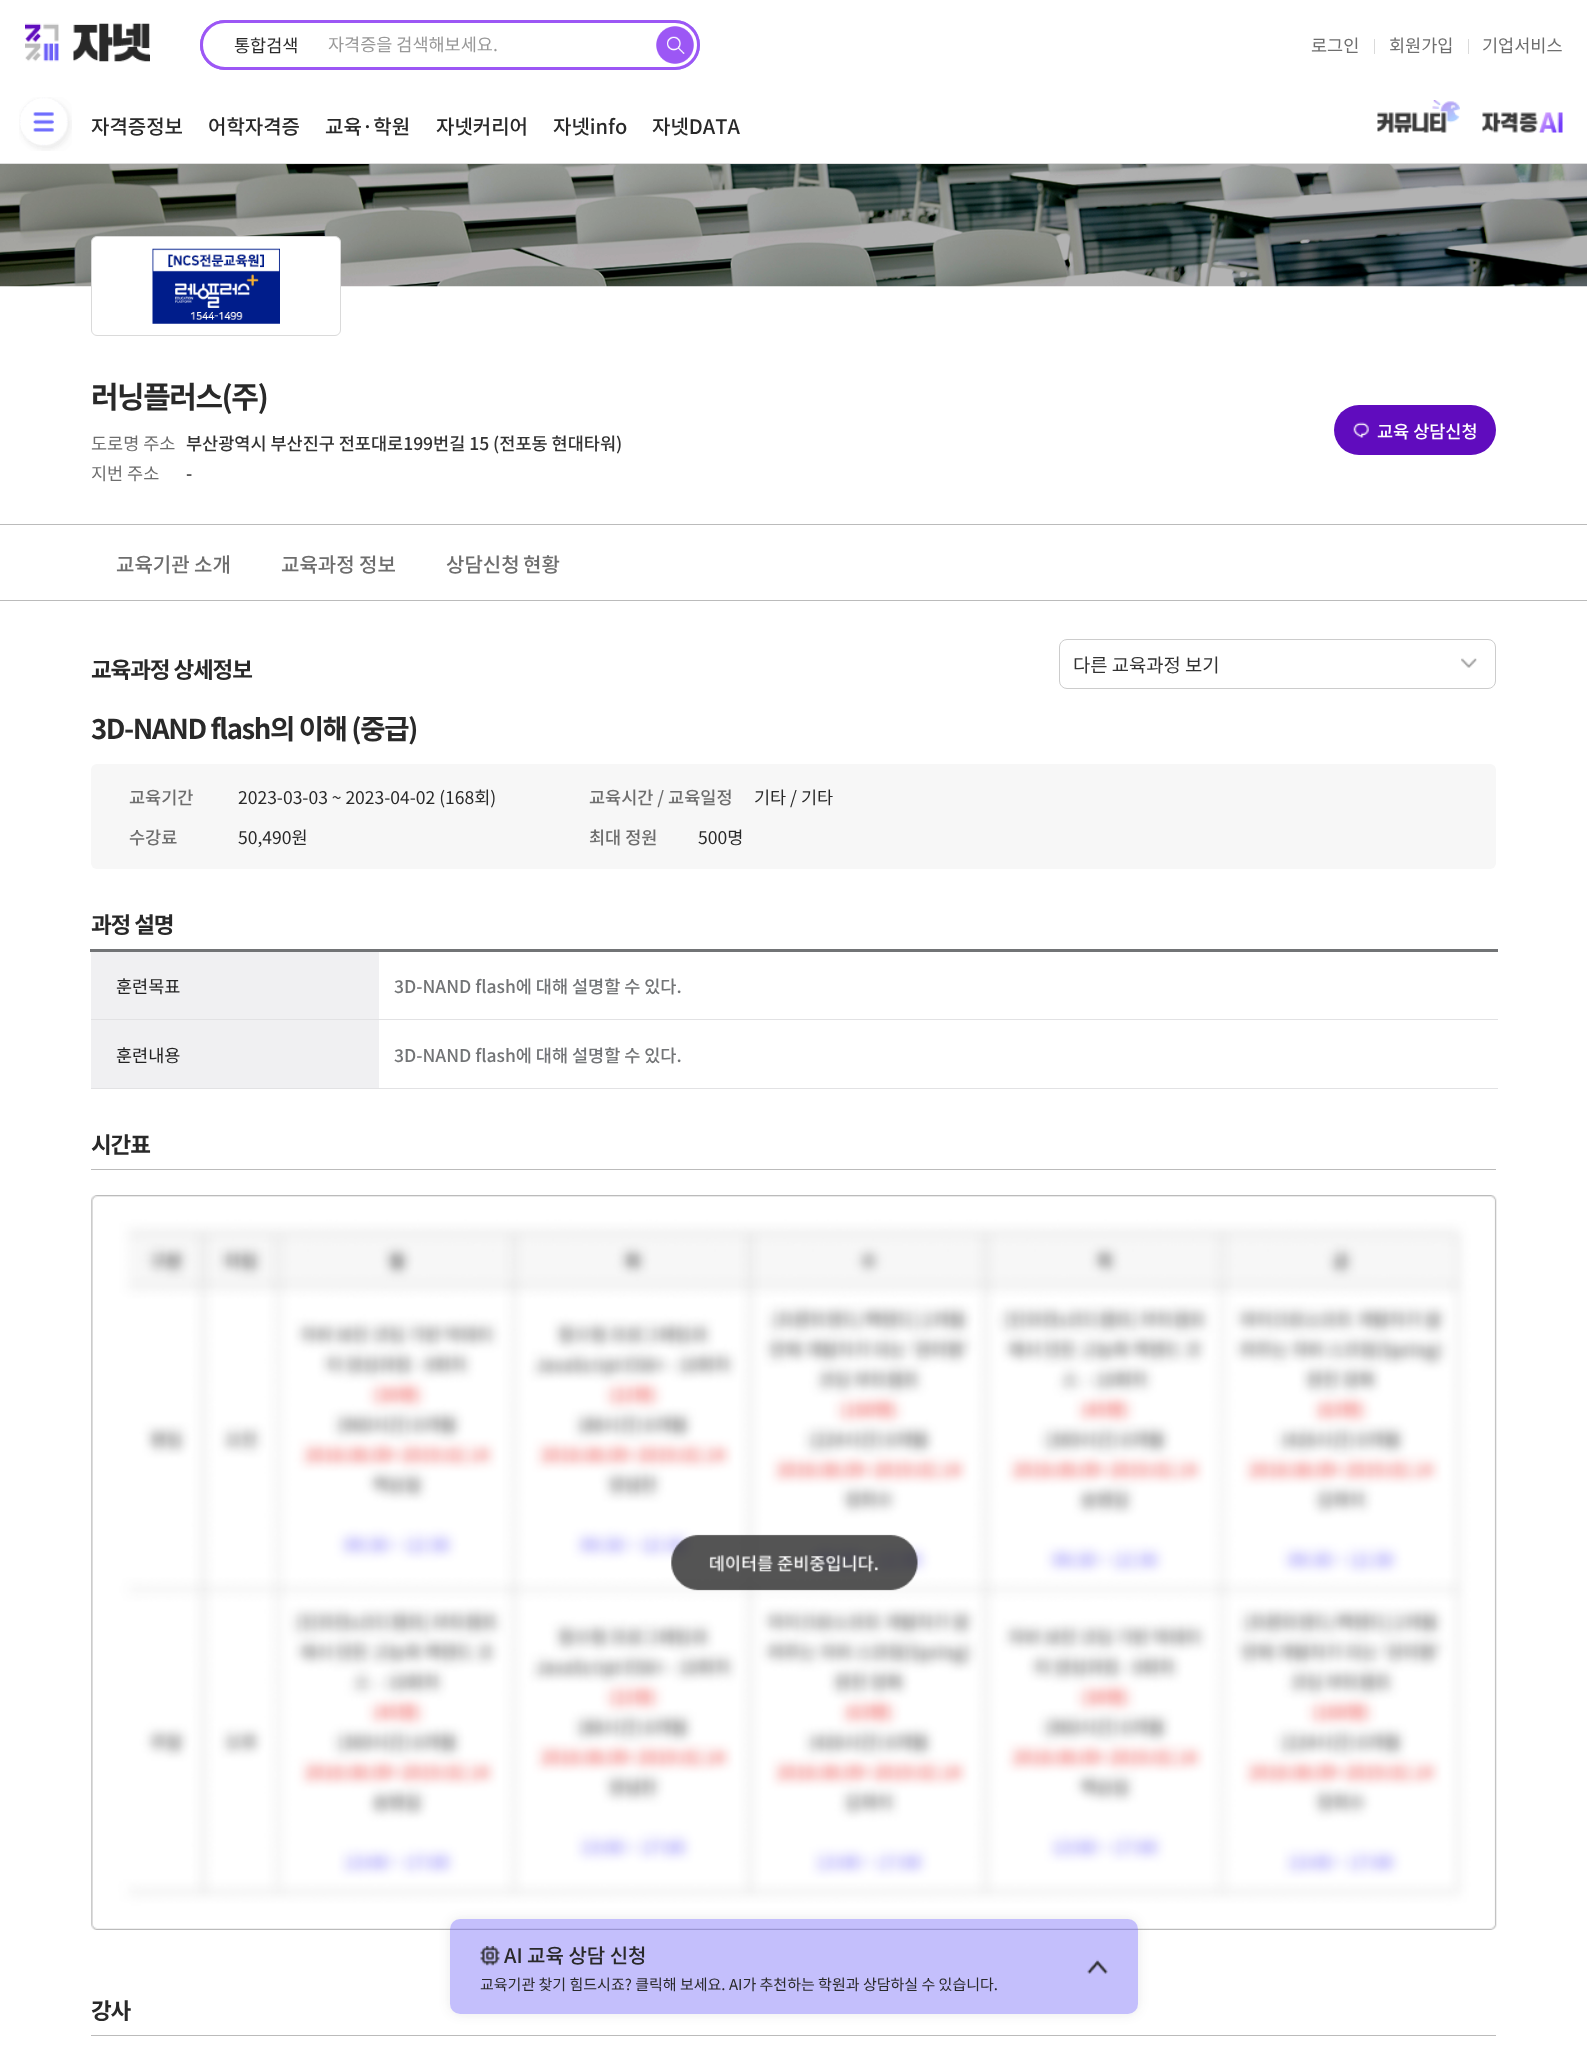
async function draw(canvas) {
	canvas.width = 1587;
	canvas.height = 2051;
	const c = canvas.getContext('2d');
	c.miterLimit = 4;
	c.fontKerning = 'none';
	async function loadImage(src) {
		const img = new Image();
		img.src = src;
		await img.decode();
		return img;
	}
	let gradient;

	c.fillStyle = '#fff';
	c.fillRect(0, 0, 1587, 2051);
	c.fillStyle = '#dfdfdf';
	c.fillRect(0, 163, 1587, 1);
	c.drawImage(await loadImage('img1.png'), 25, 23, 125, 39);
	gradient = c.createLinearGradient(313, -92, 588, 183);
	gradient.addColorStop(0, '#9c57f5');
	gradient.addColorStop(1, '#9babff');
	c.fillStyle = gradient;
	c.beginPath();
	c.roundRect(200, 20, 500, 50, 25);
	c.fill();
	c.fillStyle = '#fff';
	c.beginPath();
	c.roundRect(201.5, 21.5, 497, 47, 23.5);
	c.fill();
	c.strokeStyle = '#9c57f5';
	c.lineWidth = 3;
	c.stroke();
	c.font = '17.5px Noto Sans KR';
	c.fillStyle = '#292929';
	c.fillText('통합검색', 234, 52);
	c.fillStyle = '#989898';
	c.fillText('자격증을 검색해보세요.', 328, 51);
	c.drawImage(await loadImage('img2.png'), 656, 26, 38, 38);
	c.fillStyle = '#6e6e6e';
	c.fillText('로그인', 1311, 52);
	c.fillStyle = '#dadada';
	c.fillRect(1374, 39, 1, 15);
	c.fillStyle = '#6e6e6e';
	c.fillText('회원가입', 1389, 52);
	c.fillStyle = '#dadada';
	c.fillRect(1468, 39, 1, 15);
	c.fillStyle = '#6e6e6e';
	c.fillText('기업서비스', 1482, 52);
	c.drawImage(await loadImage('img3.png'), 19, 97, 53, 54);
	c.font = '500 20px Noto Sans KR';
	c.fillStyle = '#292929';
	for (const [text, x, y] of [
		['자격증정보', 91, 134],
		['어학자격증', 208, 134],
		['교육·학원', 325, 134],
		['자넷커리어', 436, 134],
		['자넷info', 553, 134],
		['자넷DATA', 652, 134],
	]) {
		c.fillText(text, x, y);
	}
	c.drawImage(await loadImage('img4.png'), 1377, 100, 83, 33);
	c.drawImage(await loadImage('img5.png'), 1482, 112, 81, 21);
	c.drawImage(await loadImage('img6.png'), 0, 164, 1587, 123);
	c.fillStyle = '#fff';
	c.beginPath();
	c.roundRect(91.5, 236.5, 249, 99, 5.5);
	c.fill();
	c.strokeStyle = '#dadada';
	c.lineWidth = 1;
	c.stroke();
	c.drawImage(await loadImage('img7.png'), 152, 248, 128, 76);
	c.letterSpacing = '-1.5px';
	c.font = 'bold 30px Noto Sans KR';
	c.fillStyle = '#292929';
	c.fillText('러닝플러스(주)', 91, 408);
	c.letterSpacing = '0px';
	c.font = '17.5px Noto Sans KR';
	c.fillStyle = '#6e6e6e';
	c.fillText('도로명 주소', 91, 450);
	c.font = '500 17.5px Noto Sans KR';
	c.fillStyle = '#333';
	c.fillText('부산광역시 부산진구 전포대로199번길 15 (전포동 현대타워)', 186, 450);
	c.font = '17.5px Noto Sans KR';
	c.fillStyle = '#6e6e6e';
	c.fillText('지번 주소', 91, 480);
	c.font = '500 17.5px Noto Sans KR';
	c.fillStyle = '#333';
	c.fillText('-', 186, 480);
	c.fillStyle = '#600cbe';
	c.beginPath();
	c.roundRect(1334, 405, 162, 50, 25);
	c.fill();
	c.drawImage(await loadImage('img8.png'), 1353, 422, 16, 16);
	c.fillStyle = '#fff';
	c.fillText('교육 상담신청', 1377, 438);
	c.fillStyle = '#bbb';
	c.fillRect(0, 524, 1587, 1);
	c.fillRect(0, 600, 1587, 1);
	c.font = '500 20px Noto Sans KR';
	c.fillStyle = '#6e6e6e';
	c.fillText('교육기관 소개', 116, 572);
	c.fillText('교육과정 정보', 281, 572);
	c.wordSpacing = '-1px';
	c.fillText('상담신청 현황', 446, 572);
	c.letterSpacing = '-1.1px';
	c.wordSpacing = '0px';
	c.font = 'bold 22.5px Noto Sans KR';
	c.fillStyle = '#292929';
	c.fillText('교육과정 상세정보', 91, 678);
	c.beginPath();
	c.roundRect(1059.5, 639.5, 436, 49, 7.5);
	c.strokeStyle = '#ccc';
	c.stroke();
	c.letterSpacing = '0px';
	c.font = '18.75px Noto Sans KR';
	c.fillStyle = '#333';
	c.fillText('다른 교육과정 보기', 1073, 672);
	c.drawImage(await loadImage('img9.png'), 1461, 658, 16, 10);
	c.letterSpacing = '-1.4px';
	c.font = 'bold 27.5px Noto Sans KR';
	c.fillStyle = '#292929';
	c.fillText('3D-NAND flash의 이해 (중급)', 91, 739);
	c.fillStyle = '#f7f7f7';
	c.beginPath();
	c.roundRect(91, 764, 1405, 105, 6);
	c.fill();
	c.letterSpacing = '0px';
	c.font = '500 17.5px Noto Sans KR';
	c.fillStyle = '#6e6e6e';
	c.fillText('교육기간', 129, 804);
	c.font = '17.5px Noto Sans KR';
	c.fillStyle = '#292929';
	c.fillText('2023-03-03 ~ 2023-04-02 (168회)', 238, 804);
	c.font = '500 17.5px Noto Sans KR';
	c.fillStyle = '#6e6e6e';
	c.fillText('교육시간 / 교육일정', 589, 804);
	c.font = '17.5px Noto Sans KR';
	c.fillStyle = '#292929';
	c.fillText('기타 / 기타', 754, 804);
	c.font = '500 17.5px Noto Sans KR';
	c.fillStyle = '#6e6e6e';
	c.fillText('수강료', 129, 844);
	c.font = '17.5px Noto Sans KR';
	c.fillStyle = '#292929';
	c.fillText('50,490원', 238, 844);
	c.font = '500 17.5px Noto Sans KR';
	c.fillStyle = '#6e6e6e';
	c.fillText('최대 정원', 589, 844);
	c.font = '17.5px Noto Sans KR';
	c.fillStyle = '#292929';
	c.fillText('500명', 698, 844);
	c.letterSpacing = '-1.1px';
	c.font = 'bold 22.5px Noto Sans KR';
	c.fillText('과정 설명', 91, 933);
	c.fillStyle = '#727476';
	c.fillRect(90, 949, 1408, 3);
	c.fillStyle = '#f0f0f2';
	c.fillRect(91, 952, 288, 67);
	c.letterSpacing = '0px';
	c.font = '17.5px Noto Sans KR';
	c.fillStyle = '#222';
	c.fillText('훈련목표', 116, 993);
	c.fillStyle = '#e2e2e4';
	c.fillRect(91, 1019, 1407, 1);
	c.font = '500 17.5px Noto Sans KR';
	c.fillStyle = '#727476';
	c.fillText('3D-NAND flash에 대해 설명할 수 있다.', 394, 993);
	c.fillStyle = '#f0f0f2';
	c.fillRect(91, 1020, 288, 68);
	c.font = '17.5px Noto Sans KR';
	c.fillStyle = '#222';
	c.fillText('훈련내용', 116, 1062);
	c.fillStyle = '#e2e2e4';
	c.fillRect(91, 1088, 1407, 1);
	c.font = '500 17.5px Noto Sans KR';
	c.fillStyle = '#727476';
	c.fillText('3D-NAND flash에 대해 설명할 수 있다.', 394, 1062);
	c.letterSpacing = '-1.1px';
	c.font = 'bold 22.5px Noto Sans KR';
	c.fillStyle = '#292929';
	c.fillText('시간표', 91, 1153);
	c.fillStyle = '#bbb';
	c.fillRect(91, 1169, 1405, 1);
	c.drawImage(await loadImage('img10.png'), 91, 1195, 1406, 735);
	c.fillStyle = '#292929';
	c.fillText('강사', 91, 2019);
	c.fillStyle = '#bbb';
	c.fillRect(91, 2035, 1405, 1);
	c.save();
	c.beginPath();
	c.moveTo(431, 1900);
	c.lineTo(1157, 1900);
	c.lineTo(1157, 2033);
	c.lineTo(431, 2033);
	c.closePath();
	c.moveTo(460, 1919);
	c.lineTo(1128, 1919);
	c.bezierCurveTo(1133.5, 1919, 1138, 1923.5, 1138, 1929);
	c.lineTo(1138, 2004);
	c.bezierCurveTo(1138, 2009.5, 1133.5, 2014, 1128, 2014);
	c.lineTo(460, 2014);
	c.bezierCurveTo(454.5, 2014, 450, 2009.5, 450, 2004);
	c.lineTo(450, 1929);
	c.bezierCurveTo(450, 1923.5, 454.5, 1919, 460, 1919);
	c.closePath();
	c.clip('evenodd');
	c.fillStyle = '#2929291a';
	c.filter = 'blur(6px)';
	c.beginPath();
	c.roundRect(450, 1919, 688, 95, 10);
	c.fill();
	c.filter = 'none';
	c.restore();
	c.fillStyle = '#6c60f866';
	c.beginPath();
	c.roundRect(450, 1919, 688, 95, 10);
	c.fill();
	c.drawImage(await loadImage('img11.png'), 480, 1946, 20, 20);
	c.letterSpacing = '0px';
	c.font = '500 20px Noto Sans KR';
	c.fillStyle = '#292929';
	c.fillText('AI 교육 상담 신청', 504, 1963);
	c.font = '15px Noto Sans KR';
	c.fillText('교육기관 찾기 힘드시죠? 클릭해 보세요. AI가 추천하는 학원과 상담하실 수 있습니다.', 480, 1990);
	c.drawImage(await loadImage('img12.png'), 1087, 1959, 21, 15);
}

draw(document.querySelector('canvas'));
